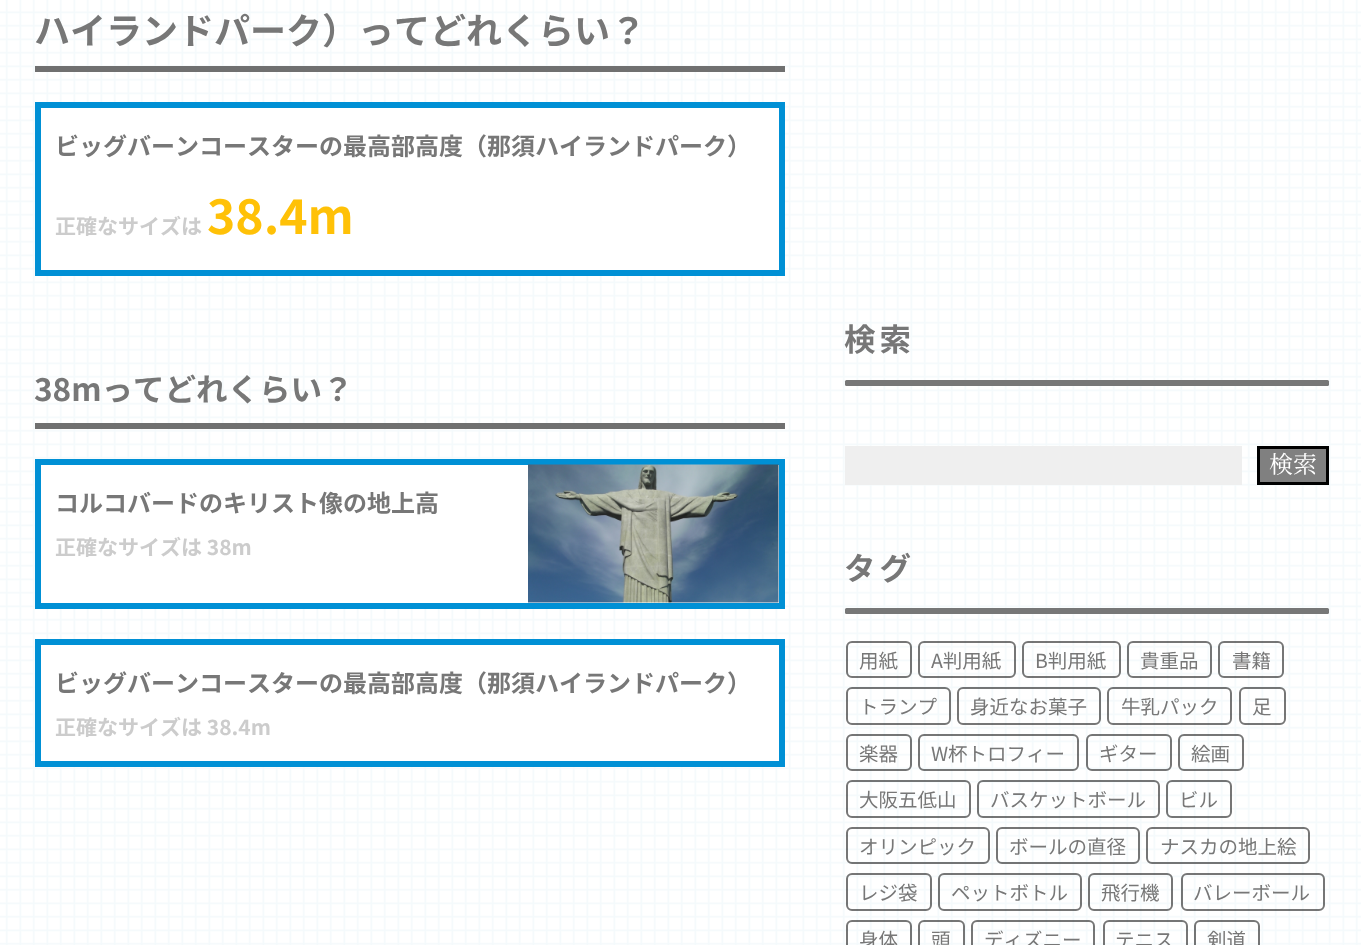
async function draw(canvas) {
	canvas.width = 1361;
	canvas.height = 945;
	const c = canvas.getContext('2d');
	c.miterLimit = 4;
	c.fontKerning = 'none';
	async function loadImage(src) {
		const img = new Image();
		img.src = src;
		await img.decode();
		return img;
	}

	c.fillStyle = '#fff';
	c.fillRect(0, 0, 1361, 945);
	c.drawImage(await loadImage('img1.png'), 0, 0, 1361, 945);
	c.fillStyle = '#707070';
	c.fillRect(35, 66, 750, 6);
	c.font = 'bold 36px Noto Sans JP';
	c.fillStyle = '#777';
	c.fillText('ハイランドパーク）ってどれくらい？', 34, 44);
	c.fillStyle = '#fff';
	c.beginPath();
	c.rect(38, 105, 744, 168);
	c.fill();
	c.strokeStyle = '#0090d5';
	c.lineWidth = 6;
	c.stroke();
	c.font = 'bold 24px Noto Sans JP';
	c.fillStyle = '#777';
	c.fillText('ビッグバーンコースターの最高部高度（那須ハイランドパーク）', 55, 155);
	c.font = 'bold 21px Noto Sans JP';
	c.fillStyle = '#ccc';
	c.fillText('正確なサイズは', 55, 234);
	c.font = 'bold 48px Noto Sans JP';
	c.fillStyle = '#ffc107';
	c.fillText('38.4m', 207, 234);
	c.fillStyle = '#707070';
	c.fillRect(35, 423, 750, 6);
	c.font = 'bold 31.5px Noto Sans JP';
	c.fillStyle = '#777';
	c.fillText('38mってどれくらい？', 34, 401);
	c.fillStyle = '#fff';
	c.beginPath();
	c.rect(38, 462, 744, 144);
	c.fill();
	c.stroke();
	c.font = 'bold 24px Noto Sans JP';
	c.fillStyle = '#777';
	c.fillText('コルコバードのキリスト像の地上高', 55, 512);
	c.font = 'bold 21px Noto Sans JP';
	c.fillStyle = '#ccc';
	c.fillText('正確なサイズは 38m', 55, 555);
	c.drawImage(await loadImage('img2.png'), 528, 464, 251, 139);
	c.fillStyle = '#fff';
	c.beginPath();
	c.rect(38, 642, 744, 122);
	c.fill();
	c.stroke();
	c.font = 'bold 24px Noto Sans JP';
	c.fillStyle = '#777';
	c.fillText('ビッグバーンコースターの最高部高度（那須ハイランドパーク）', 55, 692);
	c.font = 'bold 21px Noto Sans JP';
	c.fillStyle = '#ccc';
	c.fillText('正確なサイズは 38.4m', 55, 735);
	c.letterSpacing = '4px';
	c.font = 'bold 31.5px Noto Sans JP';
	c.fillStyle = '#777';
	c.fillText('検索', 844, 351);
	c.beginPath();
	c.roundRect(845, 380, 484, 6, 1.5);
	c.fill();
	c.fillStyle = '#efefef';
	c.fillRect(845, 446, 397, 39);
	c.fillStyle = '#808080';
	c.beginPath();
	c.rect(1258.5, 447.5, 69, 36);
	c.fill();
	c.strokeStyle = '#000';
	c.lineWidth = 3;
	c.stroke();
	c.letterSpacing = '0px';
	c.font = '24px Noto Serif JP';
	c.fillStyle = '#fff';
	c.fillText('検索', 1269, 473);
	c.letterSpacing = '4px';
	c.font = 'bold 31.5px Noto Sans JP';
	c.fillStyle = '#777';
	c.fillText('タグ', 844, 580);
	c.beginPath();
	c.roundRect(845, 608, 484, 6, 1.5);
	c.fill();
	c.beginPath();
	c.roundRect(847, 642, 64, 35, 5);
	c.strokeStyle = '#1a1a1a99';
	c.lineWidth = 2;
	c.stroke();
	c.letterSpacing = '0px';
	c.font = '19.5px Noto Sans JP';
	c.fillText('用紙', 859, 668);
	c.beginPath();
	c.roundRect(919, 642, 96, 35, 5);
	c.stroke();
	c.fillText('A判用紙', 931, 668);
	c.beginPath();
	c.roundRect(1023, 642, 97, 35, 5);
	c.stroke();
	c.fillText('B判用紙', 1035, 668);
	c.beginPath();
	c.roundRect(1128, 642, 83, 35, 5);
	c.stroke();
	c.fillText('貴重品', 1140, 668);
	c.beginPath();
	c.roundRect(1219, 642, 64, 35, 5);
	c.stroke();
	c.fillText('書籍', 1232, 668);
	c.beginPath();
	c.roundRect(847, 688, 103, 36, 5);
	c.stroke();
	c.fillText('トランプ', 859, 714);
	c.beginPath();
	c.roundRect(958, 688, 142, 36, 5);
	c.stroke();
	c.fillText('身近なお菓子', 970, 714);
	c.beginPath();
	c.roundRect(1108, 688, 123, 36, 5);
	c.stroke();
	c.fillText('牛乳パック', 1121, 714);
	c.beginPath();
	c.roundRect(1240, 688, 45, 36, 5);
	c.stroke();
	c.fillText('足', 1252, 714);
	c.beginPath();
	c.roundRect(847, 735, 64, 35, 5);
	c.stroke();
	c.fillText('楽器', 859, 761);
	c.beginPath();
	c.roundRect(919, 735, 159, 35, 5);
	c.stroke();
	c.fillText('W杯トロフィー', 931, 761);
	c.beginPath();
	c.roundRect(1087, 735, 84, 35, 5);
	c.stroke();
	c.fillText('ギター', 1099, 761);
	c.beginPath();
	c.roundRect(1179, 735, 64, 35, 5);
	c.stroke();
	c.fillText('絵画', 1191, 761);
	c.beginPath();
	c.roundRect(847, 781, 123, 36, 5);
	c.stroke();
	c.fillText('大阪五低山', 859, 807);
	c.beginPath();
	c.roundRect(978, 781, 181, 36, 5);
	c.stroke();
	c.fillText('バスケットボール', 990, 807);
	c.beginPath();
	c.roundRect(1167, 781, 64, 36, 5);
	c.stroke();
	c.fillText('ビル', 1179, 807);
	c.beginPath();
	c.roundRect(847, 828, 142, 35, 5);
	c.stroke();
	c.fillText('オリンピック', 859, 854);
	c.beginPath();
	c.roundRect(997, 828, 142, 35, 5);
	c.stroke();
	c.fillText('ボールの直径', 1009, 854);
	c.beginPath();
	c.roundRect(1147, 828, 162, 35, 5);
	c.stroke();
	c.fillText('ナスカの地上絵', 1160, 854);
	c.beginPath();
	c.roundRect(847, 874, 84, 36, 5);
	c.stroke();
	c.fillText('レジ袋', 859, 900);
	c.beginPath();
	c.roundRect(939, 874, 142, 36, 5);
	c.stroke();
	c.fillText('ペットボトル', 951, 900);
	c.beginPath();
	c.roundRect(1089, 874, 83, 36, 5);
	c.stroke();
	c.fillText('飛行機', 1101, 900);
	c.beginPath();
	c.roundRect(1182, 874, 142, 36, 5);
	c.stroke();
	c.fillText('バレーボール', 1193, 900);
	c.beginPath();
	c.roundRect(847, 921, 64, 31, 5);
	c.stroke();
	c.fillText('身体', 859, 947);
	c.beginPath();
	c.roundRect(919, 921, 45, 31, 5);
	c.stroke();
	c.fillText('頭', 931, 947);
	c.beginPath();
	c.roundRect(972, 921, 122, 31, 5);
	c.stroke();
	c.fillText('ディズニー', 984, 947);
	c.beginPath();
	c.roundRect(1104, 921, 83, 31, 5);
	c.stroke();
	c.fillText('テニス', 1115, 947);
	c.beginPath();
	c.roundRect(1195, 921, 64, 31, 5);
	c.stroke();
	c.fillText('剣道', 1207, 947);
}

draw(document.querySelector('canvas'));
